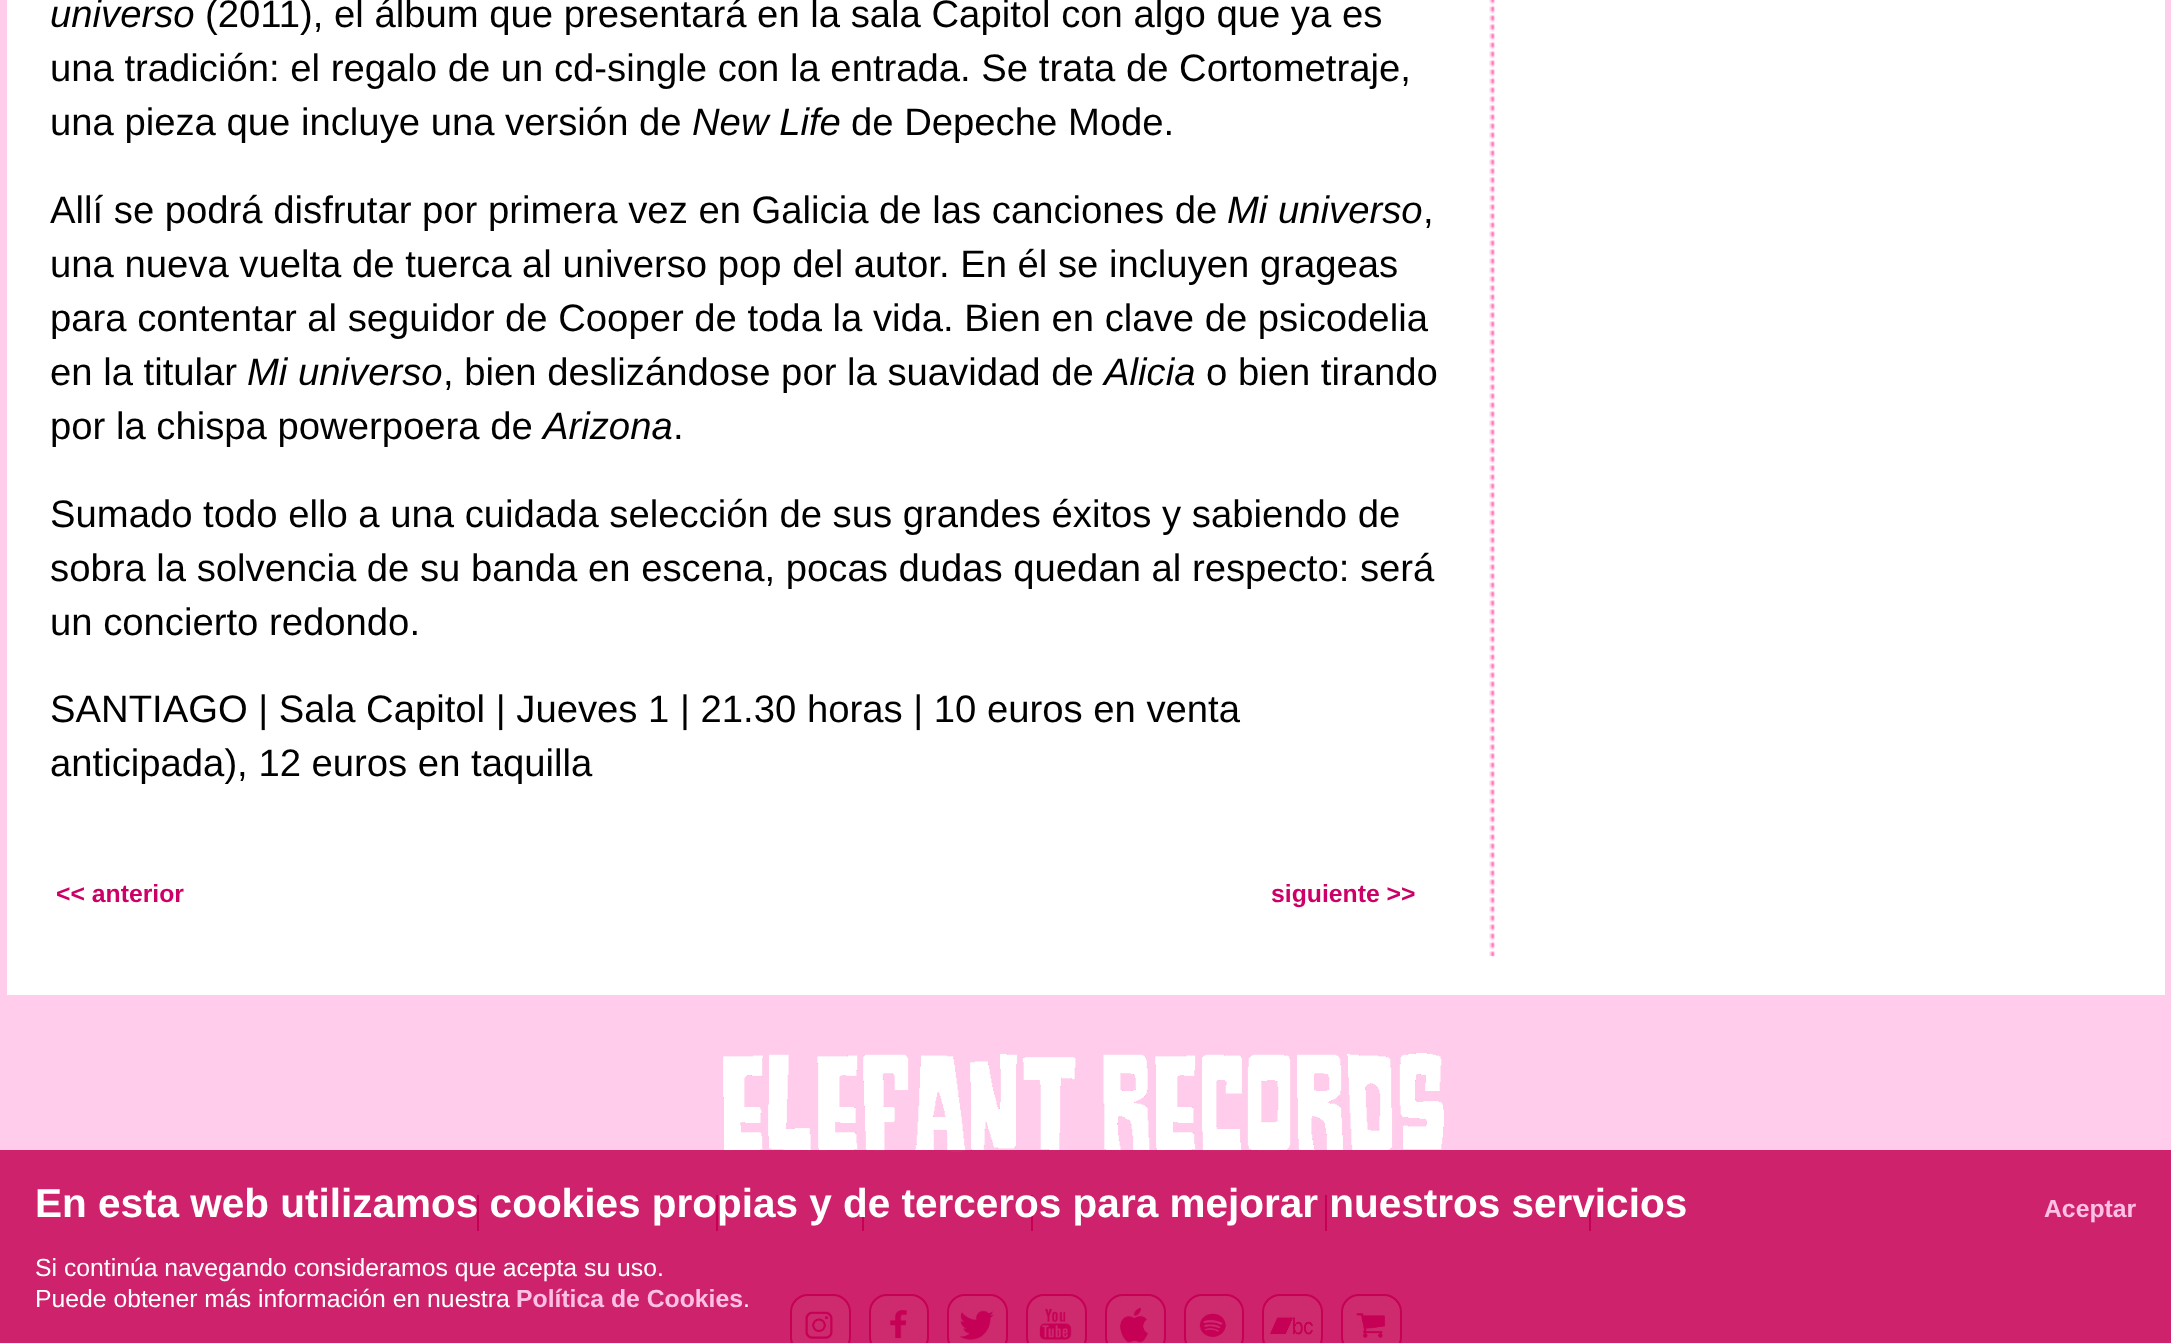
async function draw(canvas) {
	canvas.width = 2171;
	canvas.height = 1343;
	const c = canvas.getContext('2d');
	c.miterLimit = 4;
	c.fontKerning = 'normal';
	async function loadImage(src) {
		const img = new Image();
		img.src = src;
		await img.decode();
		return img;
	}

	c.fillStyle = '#ffcceb';
	c.fillRect(0, 0, 2171, 1343);
	c.fillStyle = '#fff';
	c.fillRect(7, 0, 2158, 995);
	c.drawImage(await loadImage('img1.png'), 1489, 0, 6, 957);
	c.font = 'italic 38.25px Liberation Sans';
	c.fillStyle = '#000';
	c.fillText('universo', 50, 27);
	c.font = '38.25px Liberation Sans';
	for (const [text, x, y] of [
		['(2011), el álbum que presentará en la sala Capitol con algo que ya es', 205, 27],
		['una tradición: el regalo de un cd-single con la entrada. Se trata de Cortometraje,', 50, 81],
		['una pieza que incluye una versión de', 50, 135],
	]) {
		c.fillText(text, x, y);
	}
	c.font = 'italic 38.25px Liberation Sans';
	c.fillText('New Life', 692, 135);
	c.font = '38.25px Liberation Sans';
	c.fillText('de Depeche Mode.', 851, 135);
	c.fillText('Allí se podrá disfrutar por primera vez en Galicia de las canciones de', 50, 223);
	c.font = 'italic 38.25px Liberation Sans';
	c.fillText('Mi universo', 1227, 223);
	c.font = '38.25px Liberation Sans';
	for (const [text, x, y] of [
		[',', 1423, 223],
		['una nueva vuelta de tuerca al universo pop del autor. En él se incluyen grageas', 50, 277],
		['para contentar al seguidor de Cooper de toda la vida. Bien en clave de psicodelia', 50, 331],
		['en la titular', 50, 385],
	]) {
		c.fillText(text, x, y);
	}
	c.font = 'italic 38.25px Liberation Sans';
	c.fillText('Mi universo', 247, 385);
	c.font = '38.25px Liberation Sans';
	c.fillText(', bien deslizándose por la suavidad de', 443, 385);
	c.font = 'italic 38.25px Liberation Sans';
	c.fillText('Alicia', 1104, 385);
	c.font = '38.25px Liberation Sans';
	c.fillText('o bien tirando', 1206, 385);
	c.fillText('por la chispa powerpoera de', 50, 439);
	c.font = 'italic 38.25px Liberation Sans';
	c.fillText('Arizona', 543, 439);
	c.font = '38.25px Liberation Sans';
	for (const [text, x, y] of [
		['.', 673, 439],
		['Sumado todo ello a una cuidada selección de sus grandes éxitos y sabiendo de', 50, 527],
		['sobra la solvencia de su banda en escena, pocas dudas quedan al respecto: será', 50, 581],
		['un concierto redondo.', 50, 635],
		['SANTIAGO | Sala Capitol | Jueves 1 | 21.30 horas | 10 euros en venta', 50, 722],
		['anticipada), 12 euros en taquilla', 50, 776],
	]) {
		c.fillText(text, x, y);
	}
	c.font = 'bold 24.75px Liberation Sans';
	c.fillStyle = '#c06';
	c.fillText('<< anterior', 56, 902);
	c.fillText('siguiente >>', 1271, 902);
	c.drawImage(await loadImage('img2.png'), 723, 1053, 721, 99);
	for (const [x, y, w, h, color] of [
		[477, 1195, 2, 36, '#c06'],
		[716, 1195, 2, 36, '#c06'],
		[862, 1195, 2, 36, '#c06'],
		[1031, 1195, 2, 36, '#c06'],
		[1325, 1195, 2, 36, '#c06'],
		[1589, 1195, 2, 36, '#c06'],
	]) {
		c.fillStyle = color;
		c.fillRect(x, y, w, h);
	}
	c.fillStyle = '#fff';
	c.beginPath();
	c.roundRect(791, 1295, 59, 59, 17);
	c.fill();
	c.strokeStyle = '#c06';
	c.lineWidth = 2;
	c.stroke();
	c.drawImage(await loadImage('img3.png'), 805, 1311, 28, 28);
	c.beginPath();
	c.roundRect(870, 1295, 58, 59, 17);
	c.fill();
	c.stroke();
	c.drawImage(await loadImage('img4.png'), 890, 1309, 17, 30);
	c.beginPath();
	c.roundRect(948, 1295, 59, 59, 17);
	c.fill();
	c.stroke();
	c.drawImage(await loadImage('img5.png'), 959, 1310, 35, 30);
	c.beginPath();
	c.roundRect(1027, 1295, 59, 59, 17);
	c.fill();
	c.stroke();
	c.drawImage(await loadImage('img6.png'), 1039, 1308, 33, 32);
	c.beginPath();
	c.roundRect(1106, 1295, 59, 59, 17);
	c.fill();
	c.stroke();
	c.drawImage(await loadImage('img7.png'), 1120, 1307, 28, 36);
	c.beginPath();
	c.roundRect(1185, 1295, 58, 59, 17);
	c.fill();
	c.stroke();
	c.drawImage(await loadImage('img8.png'), 1199, 1313, 27, 25);
	c.beginPath();
	c.roundRect(1263, 1295, 59, 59, 17);
	c.fill();
	c.stroke();
	c.drawImage(await loadImage('img9.png'), 1270, 1317, 43, 18);
	c.beginPath();
	c.roundRect(1342, 1295, 59, 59, 17);
	c.fill();
	c.stroke();
	c.drawImage(await loadImage('img10.png'), 1356, 1313, 30, 25);
	c.fillStyle = '#c40052d4';
	c.fillRect(0, 1150, 2171, 193);
	c.font = 'bold 40.5px Liberation Sans';
	c.fillStyle = '#fff';
	c.fillText('En esta web utilizamos cookies propias y de terceros para mejorar nuestros servicios', 35, 1217);
	c.font = 'bold 24.75px Liberation Sans';
	c.fillStyle = '#ffc0e5';
	c.fillText('Aceptar', 2044, 1217);
	c.font = '24.75px Liberation Sans';
	c.fillStyle = '#fff';
	c.fillText('Si continúa navegando consideramos que acepta su uso.', 35, 1276);
	c.fillText('Puede obtener más información en nuestra', 35, 1307);
	c.font = 'bold 24.75px Liberation Sans';
	c.fillStyle = '#ffc0e5';
	c.fillText('Política de Cookies', 516, 1307);
	c.font = '24.75px Liberation Sans';
	c.fillStyle = '#fff';
	c.fillText('.', 743, 1307);
}

draw(document.querySelector('canvas'));
